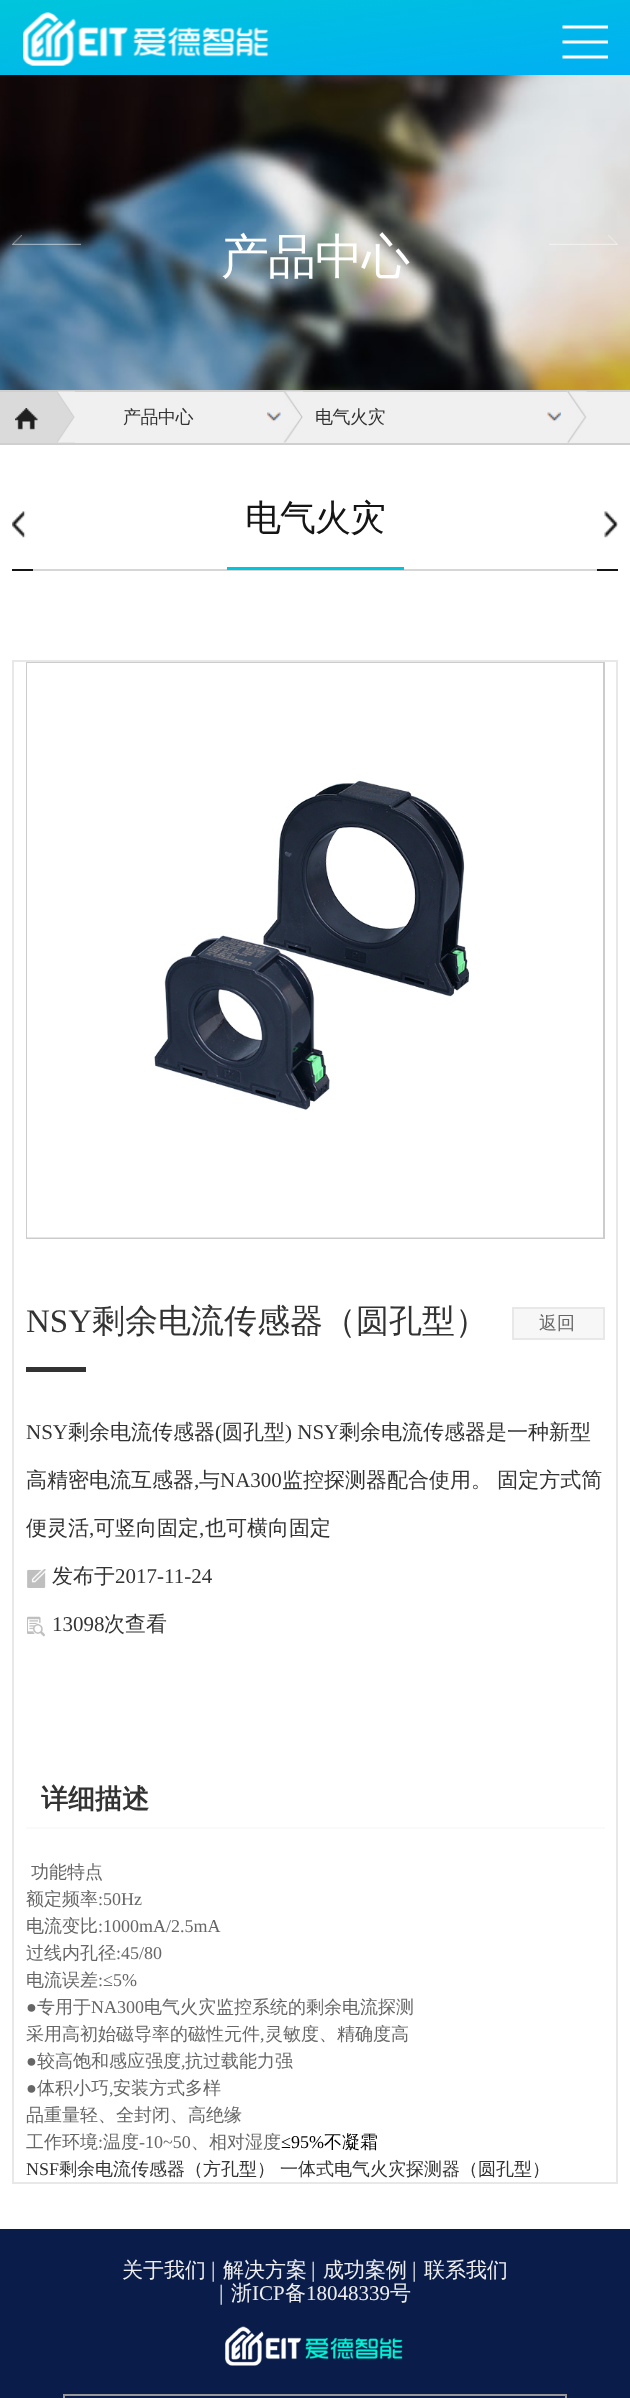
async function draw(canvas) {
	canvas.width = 630;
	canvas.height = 2398;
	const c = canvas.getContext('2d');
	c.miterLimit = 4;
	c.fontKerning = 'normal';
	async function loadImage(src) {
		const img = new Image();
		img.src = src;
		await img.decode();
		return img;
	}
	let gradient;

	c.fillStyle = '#fff';
	c.fillRect(0, 0, 630, 2398);
	gradient = c.createLinearGradient(306, -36, 324, 111);
	gradient.addColorStop(0, '#00c5db');
	gradient.addColorStop(1, '#01aff3');
	c.fillStyle = gradient;
	c.fillRect(0, 0, 630, 75);
	c.drawImage(await loadImage('img1.png'), 23, 12, 246, 54);
	c.drawImage(await loadImage('img2.png'), 562, 25, 46, 34);
	c.drawImage(await loadImage('img3.png'), 0, 75, 630, 315);
	c.letterSpacing = '-1px';
	c.font = '500 48px WenQuanYi Zen Hei';
	c.fillStyle = '#fff';
	c.fillText('产品中心', 221, 273);
	c.drawImage(await loadImage('img4.png'), 12, 235, 69, 10);
	c.drawImage(await loadImage('img5.png'), 549, 235, 69, 10);
	for (const [x, y, w, h, color] of [
		[0, 390, 630, 2, '#cfcfcf'],
		[0, 443, 630, 2, '#cfcfcf'],
		[75, 392, 555, 51, '#f0f0f0'],
		[0, 392, 75, 51, '#dadada'],
	]) {
		c.fillStyle = color;
		c.fillRect(x, y, w, h);
	}
	c.drawImage(await loadImage('img6.png'), 57, 391, 18, 52);
	c.drawImage(await loadImage('img7.png'), 15, 408, 23, 22);
	c.drawImage(await loadImage('img8.png'), 283, 391, 20, 52);
	c.drawImage(await loadImage('img9.png'), 267, 412, 14, 10);
	c.letterSpacing = '-0.5px';
	c.font = '500 18px WenQuanYi Zen Hei';
	c.fillStyle = '#333';
	c.fillText('产品中心', 123, 423);
	c.drawImage(await loadImage('img10.png'), 567, 391, 20, 52);
	c.drawImage(await loadImage('img11.png'), 547, 412, 14, 10);
	c.fillText('电气火灾', 315, 423);
	c.fillStyle = '#d6d6d6';
	c.fillRect(33, 569, 564, 2);
	c.fillStyle = '#151515';
	c.fillRect(12, 569, 21, 2);
	c.drawImage(await loadImage('img12.png'), 12, 511, 14, 27);
	c.fillStyle = '#00c5db';
	c.fillRect(227, 567, 177, 3);
	c.letterSpacing = '-1px';
	c.font = '500 36px WenQuanYi Zen Hei';
	c.fillStyle = '#151515';
	c.fillText('电气火灾', 245, 530);
	c.fillRect(597, 569, 21, 2);
	c.drawImage(await loadImage('img13.png'), 604, 511, 14, 27);
	c.strokeStyle = '#e8e8e8';
	c.lineWidth = 2;
	c.strokeRect(13, 661, 604, 1522);
	c.strokeStyle = '#ccc';
	c.strokeRect(27, 663, 577, 575);
	c.drawImage(await loadImage('img14.png'), 27, 663, 576, 575);
	c.letterSpacing = '0px';
	c.font = '33px Liberation Serif';
	c.fillStyle = '#333';
	c.fillText('NSY', 26, 1332);
	c.font = '500 33px WenQuanYi Zen Hei';
	c.fillText('剩余电流传感器（圆孔型）', 92, 1332);
	c.fillStyle = '#f7f7f7';
	c.beginPath();
	c.rect(513, 1308, 91, 31);
	c.fill();
	c.strokeStyle = '#e8e8e8';
	c.stroke();
	c.font = '500 18px WenQuanYi Zen Hei';
	c.fillStyle = '#666';
	c.fillText('返回', 539, 1329);
	c.fillStyle = '#333';
	c.fillRect(26, 1367, 60, 5);
	c.font = '21px Liberation Serif';
	c.fillText('NSY', 26, 1439);
	c.font = '500 21px WenQuanYi Zen Hei';
	c.fillText('剩余电流传感器', 68, 1439);
	c.font = '21px Liberation Serif';
	c.fillText('(', 215, 1439);
	c.font = '500 21px WenQuanYi Zen Hei';
	c.fillText('圆孔型', 222, 1439);
	c.font = '21px Liberation Serif';
	c.fillText(') NSY', 285, 1439);
	c.font = '500 21px WenQuanYi Zen Hei';
	c.fillText('剩余电流传感器是一种新型', 339, 1439);
	c.fillText('高精密电流互感器', 26, 1487);
	c.font = '21px Liberation Serif';
	c.fillText(',', 194, 1487);
	c.font = '500 21px WenQuanYi Zen Hei';
	c.fillText('与', 199, 1487);
	c.font = '21px Liberation Serif';
	c.fillText('NA300', 220, 1487);
	c.wordSpacing = '-1px';
	c.font = '500 21px WenQuanYi Zen Hei';
	c.fillText('监控探测器配合使用。 固定方式简', 282, 1487);
	c.wordSpacing = '0px';
	c.fillText('便灵活', 26, 1535);
	c.font = '21px Liberation Serif';
	c.fillText(',', 89, 1535);
	c.font = '500 21px WenQuanYi Zen Hei';
	c.fillText('可竖向固定', 94, 1535);
	c.font = '21px Liberation Serif';
	c.fillText(',', 199, 1535);
	c.font = '500 21px WenQuanYi Zen Hei';
	c.fillText('也可横向固定', 205, 1535);
	c.drawImage(await loadImage('img15.png'), 27, 1569, 19, 19);
	c.fillText('发布于', 52, 1583);
	c.font = '21px Liberation Serif';
	c.fillText('2017-11-24', 115, 1583);
	c.drawImage(await loadImage('img16.png'), 27, 1616, 18, 21);
	c.fillText('13098', 52, 1631);
	c.font = '500 21px WenQuanYi Zen Hei';
	c.fillText('次查看', 104, 1631);
	c.fillStyle = '#fafafa';
	c.fillRect(26, 1827, 579, 2);
	c.font = 'bold 27px WenQuanYi Zen Hei';
	c.fillStyle = '#333';
	c.fillText('详细描述', 41, 1808);
	c.font = '500 18px WenQuanYi Zen Hei';
	c.fillStyle = '#666';
	c.fillText('功能特点', 31, 1878);
	c.fillText('额定频率', 26, 1905);
	c.font = '18px Liberation Serif';
	c.fillText(':50Hz', 98, 1905);
	c.font = '500 18px WenQuanYi Zen Hei';
	c.fillText('电流变比', 26, 1932);
	c.font = '18px Liberation Serif';
	c.fillText(':1000mA/2.5mA', 98, 1932);
	c.font = '500 18px WenQuanYi Zen Hei';
	c.fillText('过线内孔径', 26, 1959);
	c.font = '18px Liberation Serif';
	c.fillText(':45/80', 116, 1959);
	c.font = '500 18px WenQuanYi Zen Hei';
	c.fillText('电流误差', 26, 1986);
	c.font = '18px Liberation Serif';
	c.fillText(':≤5%', 98, 1986);
	c.fillText('●', 26, 2013);
	c.font = '500 18px WenQuanYi Zen Hei';
	c.fillText('专用于', 37, 2013);
	c.font = '18px Liberation Serif';
	c.fillText('NA300', 91, 2013);
	c.font = '500 18px WenQuanYi Zen Hei';
	c.fillText('电气火灾监控系统的剩余电流探测', 144, 2013);
	c.fillText('采用高初始磁导率的磁性元件', 26, 2040);
	c.font = '18px Liberation Serif';
	c.fillText(',', 260, 2040);
	c.font = '500 18px WenQuanYi Zen Hei';
	c.fillText('灵敏度、精确度高', 265, 2040);
	c.font = '18px Liberation Serif';
	c.fillText('●', 26, 2067);
	c.font = '500 18px WenQuanYi Zen Hei';
	c.fillText('较高饱和感应强度', 37, 2067);
	c.fillText('抗过载能力强', 185, 2067);
	c.font = '18px Liberation Serif';
	c.fillText(',', 181, 2067);
	c.fillText('●', 26, 2094);
	c.font = '500 18px WenQuanYi Zen Hei';
	c.fillText('体积小巧', 37, 2094);
	c.fillText('安装方式多样', 113, 2094);
	c.font = '18px Liberation Serif';
	c.fillText(',', 109, 2094);
	c.font = '500 18px WenQuanYi Zen Hei';
	c.fillText('品重量轻、全封闭、高绝缘', 26, 2121);
	c.fillText('工作环境', 26, 2148);
	c.font = '18px Liberation Serif';
	c.fillText(':', 98, 2148);
	c.font = '500 18px WenQuanYi Zen Hei';
	c.fillText('温度', 103, 2148);
	c.font = '18px Liberation Serif';
	c.fillText('-10~50', 139, 2148);
	c.font = '500 18px WenQuanYi Zen Hei';
	c.fillText('、相对湿度', 191, 2148);
	c.font = '18px Liberation Serif';
	c.fillStyle = '#000';
	c.fillText('≤95%', 281, 2148);
	c.font = '500 18px WenQuanYi Zen Hei';
	c.fillText('不凝霜', 324, 2148);
	c.font = '18px Liberation Serif';
	c.fillStyle = '#333';
	c.fillText('NSF', 26, 2175);
	c.font = '500 18px WenQuanYi Zen Hei';
	c.fillText('剩余电流传感器（方孔型）', 59, 2175);
	c.fillText('一体式电气火灾探测器（圆孔型）', 280, 2175);
	c.fillStyle = '#0a1d4a';
	c.fillRect(0, 2229, 630, 169);
	c.font = '500 21px WenQuanYi Zen Hei';
	c.fillStyle = '#eee';
	c.fillText('关于我们', 122, 2277);
	c.font = '22px Liberation Serif';
	c.fillText('|', 211, 2277);
	c.font = '500 21px WenQuanYi Zen Hei';
	c.fillText('解决方案', 223, 2277);
	c.font = '22px Liberation Serif';
	c.fillText('|', 311, 2277);
	c.font = '500 21px WenQuanYi Zen Hei';
	c.fillText('成功案例', 323, 2277);
	c.font = '22px Liberation Serif';
	c.fillText('|', 412, 2277);
	c.font = '500 21px WenQuanYi Zen Hei';
	c.fillText('联系我们', 424, 2277);
	c.font = '22px Liberation Serif';
	c.fillText('|', 219, 2300);
	c.font = '500 21px WenQuanYi Zen Hei';
	c.fillText('浙', 231, 2300);
	c.font = '21px Liberation Serif';
	c.fillText('ICP', 252, 2300);
	c.font = '500 21px WenQuanYi Zen Hei';
	c.fillText('备', 285, 2300);
	c.font = '21px Liberation Serif';
	c.fillText('18048339', 306, 2300);
	c.font = '500 21px WenQuanYi Zen Hei';
	c.fillText('号', 390, 2300);
	c.drawImage(await loadImage('img17.png'), 225, 2326, 178, 40);
	c.strokeStyle = '#999';
	c.strokeRect(64, 2395, 502, 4);
}

draw(document.querySelector('canvas'));
